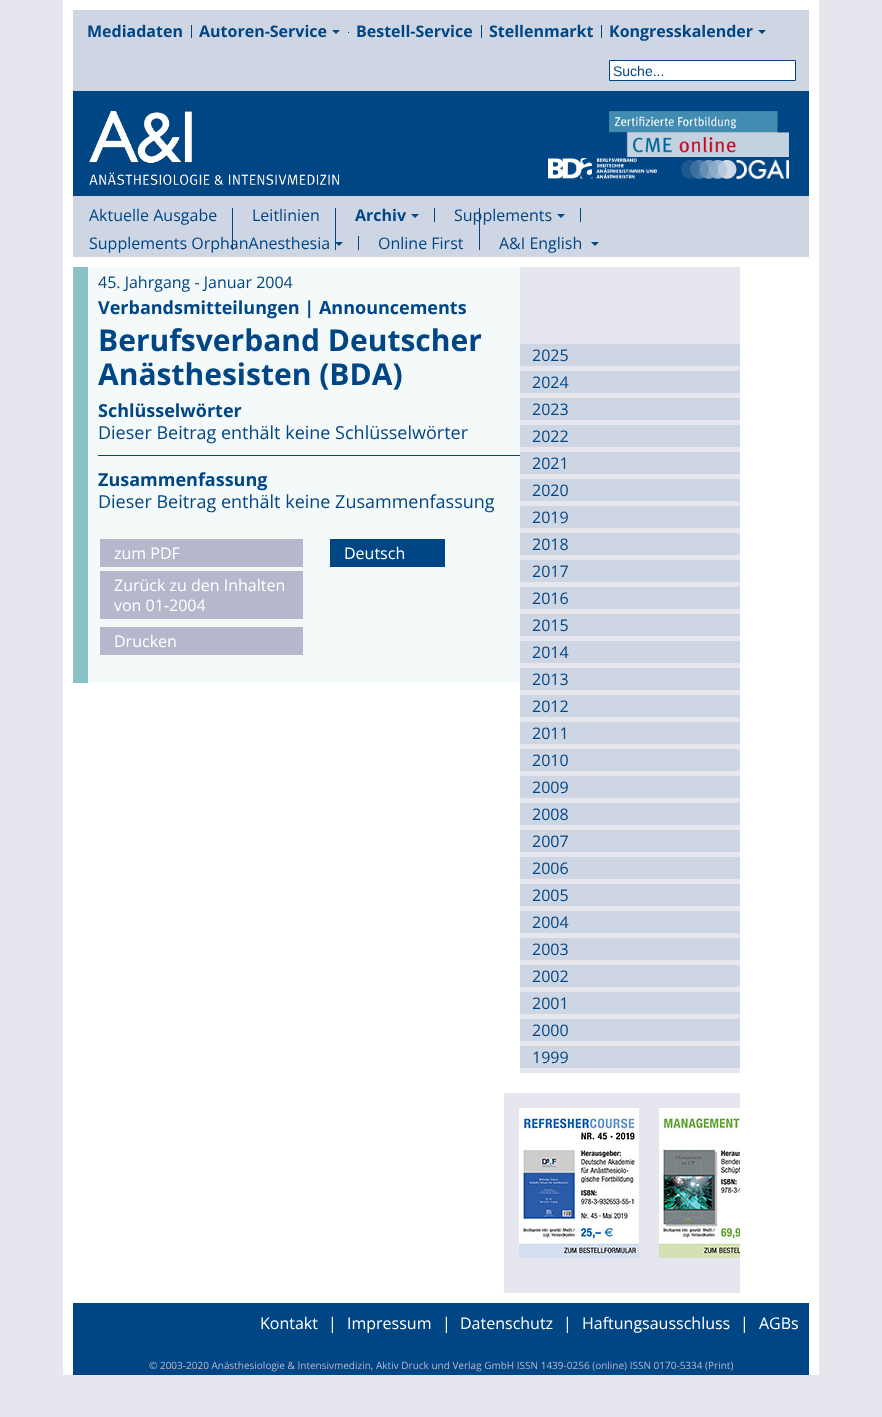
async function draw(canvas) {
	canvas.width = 882;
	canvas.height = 1417;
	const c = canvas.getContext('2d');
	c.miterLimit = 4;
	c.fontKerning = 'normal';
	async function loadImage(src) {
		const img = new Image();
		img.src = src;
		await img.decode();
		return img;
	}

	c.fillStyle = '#e6e6ee';
	c.fillRect(0, 0, 882, 1417);
	c.fillStyle = '#cfd6e3';
	c.fillRect(73, 10, 736, 81);
	c.fillStyle = '#fff';
	c.fillRect(73, 0, 736, 10);
	c.font = 'bold 16px Open Sans';
	c.fillStyle = '#004584';
	c.fillText('Mediadaten', 87, 37);
	c.fillRect(191, 25, 1, 13);
	c.fillText('Autoren-Service', 199, 37);
	c.beginPath();
	c.moveTo(332, 30);
	c.lineTo(340, 30);
	c.lineTo(336, 34);
	c.closePath();
	c.fill();
	c.fillRect(348, 32, 1, 1);
	c.fillText('Bestell-Service', 356, 37);
	c.fillRect(481, 25, 1, 13);
	c.fillText('Stellenmarkt', 489, 37);
	c.fillRect(601, 25, 1, 13);
	c.fillText('Kongresskalender', 609, 37);
	c.beginPath();
	c.moveTo(758, 30);
	c.lineTo(766, 30);
	c.lineTo(762, 34);
	c.closePath();
	c.fill();
	c.fillStyle = '#fff';
	c.beginPath();
	c.rect(609.5, 60.5, 186, 20);
	c.fill();
	c.strokeStyle = '#004584';
	c.stroke();
	c.font = '14px Liberation Sans';
	c.fillStyle = '#004584';
	c.fillText('Suche...', 613, 76);
	c.fillRect(73, 91, 736, 105);
	c.drawImage(await loadImage('img1.png'), 89, 111, 250, 74);
	c.drawImage(await loadImage('img2.png'), 609, 111, 180, 46);
	c.drawImage(await loadImage('img3.png'), 548, 158, 109, 21);
	c.drawImage(await loadImage('img4.png'), 681, 159, 108, 20);
	for (const [x, y, w, h, color] of [
		[73, 196, 736, 61, '#cfd6e3'],
		[809, 0, 10, 257, '#fff'],
		[63, 0, 10, 257, '#fff'],
	]) {
		c.fillStyle = color;
		c.fillRect(x, y, w, h);
	}
	c.font = '16px Open Sans';
	c.fillStyle = '#004584';
	c.fillText('Aktuelle Ausgabe', 89, 221);
	c.fillRect(232, 208, 1, 42);
	c.fillText('Leitlinien', 252, 221);
	c.fillRect(335, 208, 1, 42);
	c.font = 'bold 16px Open Sans';
	c.fillText('Archiv', 355, 221);
	c.beginPath();
	c.moveTo(411, 214);
	c.lineTo(419, 214);
	c.lineTo(415, 218);
	c.closePath();
	c.fill();
	c.fillRect(434, 208, 1, 14);
	c.font = '16px Open Sans';
	c.fillText('Supplements', 454, 221);
	c.beginPath();
	c.moveTo(557, 214);
	c.lineTo(565, 214);
	c.lineTo(561, 218);
	c.closePath();
	c.fill();
	c.fillRect(580, 208, 1, 14);
	c.fillText('Supplements OrphanAnesthesia', 89, 249);
	c.beginPath();
	c.moveTo(335, 242);
	c.lineTo(343, 242);
	c.lineTo(339, 246);
	c.closePath();
	c.fill();
	c.fillRect(358, 236, 1, 14);
	c.fillText('Online First', 378, 249);
	c.fillRect(479, 208, 1, 42);
	c.fillText('A&I English', 499, 249);
	c.beginPath();
	c.moveTo(591, 242);
	c.lineTo(599, 242);
	c.lineTo(595, 246);
	c.closePath();
	c.fill();
	for (const [x, y, w, h, color] of [
		[63, 257, 756, 1046, '#fff'],
		[88, 267, 432, 416, '#f4f9fa'],
		[73, 267, 15, 416, '#8bc0c7'],
	]) {
		c.fillStyle = color;
		c.fillRect(x, y, w, h);
	}
	c.fillStyle = '#004584';
	c.fillText('45. Jahrgang - Januar 2004', 98, 288);
	c.font = 'bold 18px Open Sans';
	c.fillText('Verbandsmitteilungen | Announcements', 98, 314);
	c.font = 'bold 30px Open Sans';
	c.fillText('Berufsverband Deutscher', 98, 351);
	c.fillText('Anästhesisten (BDA)', 98, 385);
	c.font = 'bold 18px Open Sans';
	c.fillText('Schlüsselwörter', 98, 417);
	c.font = '18px Open Sans';
	c.fillText('Dieser Beitrag enthält keine Schlüsselwörter', 98, 439);
	c.fillRect(98, 455, 422, 1);
	c.font = 'bold 18px Open Sans';
	c.fillText('Zusammenfassung', 98, 486);
	c.font = '18px Open Sans';
	c.fillText('Dieser Beitrag enthält keine Zusammenfassung', 98, 508);
	c.fillStyle = '#b6b7cd';
	c.fillRect(100, 539, 203, 28);
	c.font = '16px Open Sans';
	c.fillStyle = '#fff';
	c.fillText('zum PDF', 114, 559);
	c.fillStyle = '#b6b7cd';
	c.fillRect(100, 571, 203, 48);
	c.fillStyle = '#fff';
	c.fillText('Zurück zu den Inhalten', 114, 591);
	c.fillText('von 01-2004', 114, 611);
	c.fillStyle = '#b6b7cd';
	c.fillRect(100, 627, 203, 28);
	c.fillStyle = '#fff';
	c.fillText('Drucken', 114, 647);
	c.fillStyle = '#004584';
	c.fillRect(330, 539, 115, 28);
	c.fillStyle = '#fff';
	c.fillText('Deutsch', 344, 559);
	c.fillStyle = '#e6e6ee';
	c.fillRect(520, 267, 220, 806);
	c.fillStyle = '#cfd6e3';
	c.fillRect(520, 344, 220, 22);
	c.fillStyle = '#004584';
	c.fillText('2025', 532, 361);
	c.fillStyle = '#cfd6e3';
	c.fillRect(520, 371, 220, 22);
	c.fillStyle = '#004584';
	c.fillText('2024', 532, 388);
	c.fillStyle = '#cfd6e3';
	c.fillRect(520, 398, 220, 22);
	c.fillStyle = '#004584';
	c.fillText('2023', 532, 415);
	c.fillStyle = '#cfd6e3';
	c.fillRect(520, 425, 220, 22);
	c.fillStyle = '#004584';
	c.fillText('2022', 532, 442);
	c.fillStyle = '#cfd6e3';
	c.fillRect(520, 452, 220, 22);
	c.fillStyle = '#004584';
	c.fillText('2021', 532, 469);
	c.fillStyle = '#cfd6e3';
	c.fillRect(520, 479, 220, 22);
	c.fillStyle = '#004584';
	c.fillText('2020', 532, 496);
	c.fillStyle = '#cfd6e3';
	c.fillRect(520, 506, 220, 22);
	c.fillStyle = '#004584';
	c.fillText('2019', 532, 523);
	c.fillStyle = '#cfd6e3';
	c.fillRect(520, 533, 220, 22);
	c.fillStyle = '#004584';
	c.fillText('2018', 532, 550);
	c.fillStyle = '#cfd6e3';
	c.fillRect(520, 560, 220, 22);
	c.fillStyle = '#004584';
	c.fillText('2017', 532, 577);
	c.fillStyle = '#cfd6e3';
	c.fillRect(520, 587, 220, 22);
	c.fillStyle = '#004584';
	c.fillText('2016', 532, 604);
	c.fillStyle = '#cfd6e3';
	c.fillRect(520, 614, 220, 22);
	c.fillStyle = '#004584';
	c.fillText('2015', 532, 631);
	c.fillStyle = '#cfd6e3';
	c.fillRect(520, 641, 220, 22);
	c.fillStyle = '#004584';
	c.fillText('2014', 532, 658);
	c.fillStyle = '#cfd6e3';
	c.fillRect(520, 668, 220, 22);
	c.fillStyle = '#004584';
	c.fillText('2013', 532, 685);
	c.fillStyle = '#cfd6e3';
	c.fillRect(520, 695, 220, 22);
	c.fillStyle = '#004584';
	c.fillText('2012', 532, 712);
	c.fillStyle = '#cfd6e3';
	c.fillRect(520, 722, 220, 22);
	c.fillStyle = '#004584';
	c.fillText('2011', 532, 739);
	c.fillStyle = '#cfd6e3';
	c.fillRect(520, 749, 220, 22);
	c.fillStyle = '#004584';
	c.fillText('2010', 532, 766);
	c.fillStyle = '#cfd6e3';
	c.fillRect(520, 776, 220, 22);
	c.fillStyle = '#004584';
	c.fillText('2009', 532, 793);
	c.fillStyle = '#cfd6e3';
	c.fillRect(520, 803, 220, 22);
	c.fillStyle = '#004584';
	c.fillText('2008', 532, 820);
	c.fillStyle = '#cfd6e3';
	c.fillRect(520, 830, 220, 22);
	c.fillStyle = '#004584';
	c.fillText('2007', 532, 847);
	c.fillStyle = '#cfd6e3';
	c.fillRect(520, 857, 220, 22);
	c.fillStyle = '#004584';
	c.fillText('2006', 532, 874);
	c.fillStyle = '#cfd6e3';
	c.fillRect(520, 884, 220, 22);
	c.fillStyle = '#004584';
	c.fillText('2005', 532, 901);
	c.fillStyle = '#cfd6e3';
	c.fillRect(520, 911, 220, 22);
	c.fillStyle = '#004584';
	c.fillText('2004', 532, 928);
	c.fillStyle = '#cfd6e3';
	c.fillRect(520, 938, 220, 22);
	c.fillStyle = '#004584';
	c.fillText('2003', 532, 955);
	c.fillStyle = '#cfd6e3';
	c.fillRect(520, 965, 220, 22);
	c.fillStyle = '#004584';
	c.fillText('2002', 532, 982);
	c.fillStyle = '#cfd6e3';
	c.fillRect(520, 992, 220, 22);
	c.fillStyle = '#004584';
	c.fillText('2001', 532, 1009);
	c.fillStyle = '#cfd6e3';
	c.fillRect(520, 1019, 220, 22);
	c.fillStyle = '#004584';
	c.fillText('2000', 532, 1036);
	c.fillStyle = '#cfd6e3';
	c.fillRect(520, 1046, 220, 22);
	c.fillStyle = '#004584';
	c.fillText('1999', 532, 1063);
	c.fillStyle = '#e6e6ee';
	c.fillRect(504, 1093, 236, 200);
	c.drawImage(await loadImage('img5.png'), 519, 1108, 120, 150);
	c.drawImage(await loadImage('img6.png'), 659, 1108, 81, 150);
	for (const [x, y, w, h, color] of [
		[73, 1303, 736, 72, '#004584'],
		[809, 1303, 10, 72, '#fff'],
		[63, 1303, 10, 72, '#fff'],
	]) {
		c.fillStyle = color;
		c.fillRect(x, y, w, h);
	}
	for (const [text, x, y] of [
		['Kontakt', 260, 1329],
		['|', 328, 1329],
		['Impressum', 347, 1329],
		['|', 442, 1329],
		['Datenschutz', 460, 1329],
		['|', 563, 1329],
		['Haftungsausschluss', 582, 1329],
		['|', 740, 1329],
		['AGBs', 759, 1329],
	]) {
		c.fillText(text, x, y);
	}
	c.font = '10px Open Sans';
	c.fillStyle = '#b6b7cd';
	c.fillText('© 2003-2020 Anästhesiologie & Intensivmedizin, Aktiv Druck und Verlag GmbH ISSN 1439-0256 (online) ISSN 0170-5334 (Print)', 149, 1369);
}

draw(document.querySelector('canvas'));
